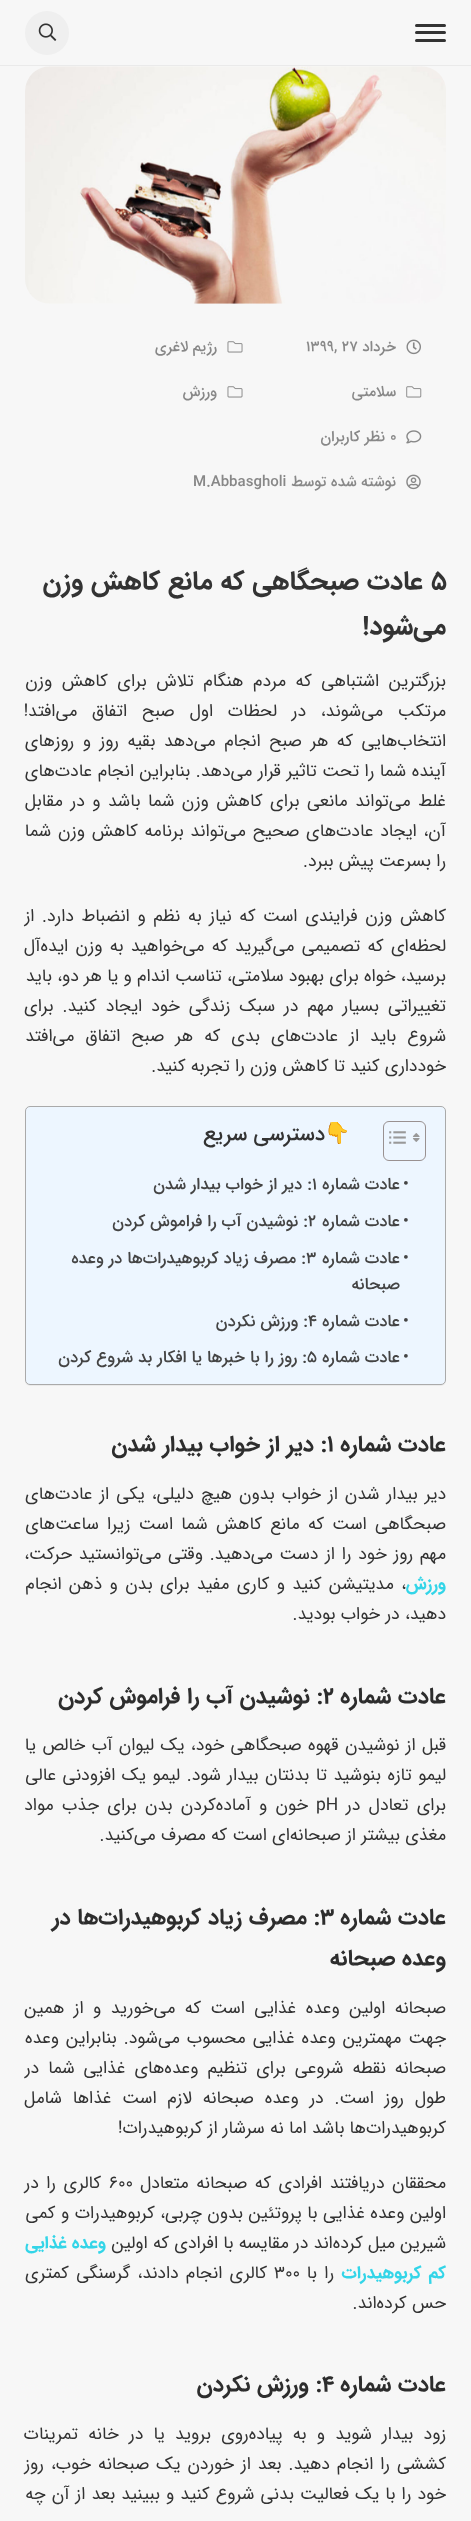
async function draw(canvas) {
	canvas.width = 471;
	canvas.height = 2521;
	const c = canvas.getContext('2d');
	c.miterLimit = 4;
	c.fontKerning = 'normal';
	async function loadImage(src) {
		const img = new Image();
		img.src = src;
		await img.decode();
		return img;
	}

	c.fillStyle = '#f7f7f7';
	c.fillRect(0, 0, 471, 2521);
	c.fillStyle = '#eaeaea';
	c.fillRect(0, 65, 471, 1);
	c.fillStyle = '#333';
	c.beginPath();
	c.roundRect(415, 24, 31, 3, 1.5);
	c.fill();
	c.beginPath();
	c.roundRect(415, 31, 31, 3, 1.5);
	c.fill();
	c.beginPath();
	c.roundRect(415, 39, 31, 3, 1.5);
	c.fill();
	c.fillStyle = '#efefef';
	c.beginPath();
	c.arc(47, 33, 22, 0, 2 * Math.PI);
	c.fill();
	c.drawImage(await loadImage('img1.png'), 38, 23, 19, 18);
	c.drawImage(await loadImage('img2.png'), 25, 66, 421, 238);
	c.drawImage(await loadImage('img3.png'), 406, 339, 15, 16);
	c.direction = 'rtl';
	c.font = '500 15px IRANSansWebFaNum';
	c.fillStyle = '#888';
	c.fillText('خرداد', 396, 351);
	c.direction = 'ltr';
	c.fillText('1399, 27', 306, 351);
	c.drawImage(await loadImage('img4.png'), 227, 341, 16, 12);
	c.direction = 'rtl';
	c.fillText('رژیم لاغری', 217, 351);
	c.drawImage(await loadImage('img5.png'), 406, 386, 16, 12);
	c.fillText('سلامتی', 396, 396);
	c.drawImage(await loadImage('img4.png'), 227, 386, 16, 12);
	c.fillText('ورزش', 217, 396);
	c.drawImage(await loadImage('img6.png'), 406, 430, 16, 14);
	c.direction = 'ltr';
	c.fillText('0', 390, 441);
	c.direction = 'rtl';
	c.fillText('نظر کاربران', 385, 441);
	c.drawImage(await loadImage('img7.png'), 406, 474, 15, 16);
	c.fillText('نوشته شده توسط', 396, 486);
	c.direction = 'ltr';
	c.fillText('M.Abbasgholi', 193, 486);
	c.font = 'bold 26.25px IRANSansWebFaNum';
	c.fillStyle = '#333';
	c.fillText('5', 431, 589);
	c.direction = 'rtl';
	c.fillText('عادت صبحگاهی که مانع کاهش وزن', 423, 589);
	c.fillText('می‌شود!', 446, 634);
	c.wordSpacing = '4.25px';
	c.font = '17.5px IRANSansWebFaNum';
	c.fillText('بزرگترین اشتباهی که مردم هنگام تلاش برای کاهش وزن', 446, 686);
	c.wordSpacing = '9.5px';
	c.fillText('مرتکب می‌شوند، در لحظات اول صبح اتفاق می‌افتد!', 446, 716);
	c.wordSpacing = '3.25px';
	c.fillText('انتخاب‌هایی که هر صبح انجام می‌دهد بقیه روز و روزهای', 446, 746);
	c.wordSpacing = '0.25px';
	c.fillText('آینده شما را تحت تاثیر قرار می‌دهد. بنابراین انجام عادت‌های', 446, 776);
	c.wordSpacing = '2.25px';
	c.fillText('غلط می‌تواند مانعی برای کاهش وزن شما باشد و در مقابل', 446, 806);
	c.wordSpacing = '1.5px';
	c.fillText('آن، ایجاد عادت‌های صحیح می‌تواند برنامه کاهش وزن شما', 446, 836);
	c.wordSpacing = '0px';
	c.fillText('را بسرعت پیش ببرد.', 446, 866);
	c.wordSpacing = '2.4px';
	c.fillText('کاهش وزن فرایندی است که نیاز به نظم و انضباط دارد. از', 446, 921);
	c.wordSpacing = '2px';
	c.fillText('لحظه‌ای که تصمیمی می‌گیرید که می‌خواهید به وزن ایده‌آل', 446, 951);
	c.wordSpacing = '0px';
	c.fillText('برسید، خواه برای بهبود سلامتی، تناسب اندام و یا هر دو، باید', 446, 981);
	c.wordSpacing = '3.75px';
	c.fillText('تغییراتی بسیار مهم در سبک زندگی خود ایجاد کنید. برای', 446, 1011);
	c.wordSpacing = '5.75px';
	c.fillText('شروع باید از عادت‌های بدی که هر صبح اتفاق می‌افتد', 446, 1041);
	c.wordSpacing = '0px';
	c.fillText('خودداری کنید تا کاهش وزن را تجربه کنید.', 446, 1071);
	c.fillStyle = '#0000000d';
	c.filter = 'blur(0.5px)';
	c.beginPath();
	c.roundRect(25, 1108, 421, 278, 5);
	c.fill();
	c.filter = 'none';
	c.fillStyle = '#edf6ff';
	c.beginPath();
	c.roundRect(25.5, 1106.5, 420, 278, 4.5);
	c.fill();
	c.strokeStyle = '#aaa';
	c.stroke();
	c.beginPath();
	c.roundRect(383.5, 1121.5, 42, 39, 5.5);
	c.strokeStyle = '#999191';
	c.stroke();
	c.drawImage(await loadImage('img8.png'), 412, 1133, 8, 9);
	c.drawImage(await loadImage('img9.png'), 389, 1131, 17, 13);
	c.font = '21px Noto Color Emoji';
	c.fillStyle = '#333';
	c.fillText('👇', 351, 1140);
	c.font = '500 21px IRANSansWebFaNum';
	c.fillText('دسترسی سریع', 325, 1140);
	c.direction = 'ltr';
	c.font = '500 16.6px IRANSansWebFaNum';
	c.fillStyle = '#444';
	c.fillText('•', 403, 1189);
	c.direction = 'rtl';
	c.fillText('عادت شماره', 400, 1189);
	c.direction = 'ltr';
	c.fillText('1', 312, 1189);
	c.direction = 'rtl';
	c.fillText(': دیر از خواب بیدار شدن', 312, 1189);
	c.direction = 'ltr';
	c.fillText('•', 403, 1226);
	c.direction = 'rtl';
	c.fillText('عادت شماره', 400, 1226);
	c.direction = 'ltr';
	c.fillText('2', 308, 1226);
	c.direction = 'rtl';
	c.fillText(': نوشیدن آب را فراموش کردن', 308, 1226);
	c.direction = 'ltr';
	c.fillText('•', 403, 1263);
	c.direction = 'rtl';
	c.fillText('عادت شماره', 400, 1263);
	c.direction = 'ltr';
	c.fillText('3', 306, 1263);
	c.direction = 'rtl';
	c.fillText(': مصرف زیاد کربوهیدرات‌ها در وعده', 306, 1263);
	c.fillText('صبحانه', 400, 1289);
	c.direction = 'ltr';
	c.fillText('•', 403, 1326);
	c.direction = 'rtl';
	c.fillText('عادت شماره', 400, 1326);
	c.direction = 'ltr';
	c.fillText('4', 308, 1326);
	c.direction = 'rtl';
	c.fillText(': ورزش نکردن', 308, 1326);
	c.direction = 'ltr';
	c.fillText('•', 403, 1362);
	c.direction = 'rtl';
	c.fillText('عادت شماره', 400, 1362);
	c.direction = 'ltr';
	c.fillText('5', 307, 1362);
	c.direction = 'rtl';
	c.fillText(': روز را با خبرها یا افکار بد شروع کردن', 307, 1362);
	c.font = 'bold 22.5px IRANSansWebFaNum';
	c.fillStyle = '#2d2d2d';
	c.fillText('عادت شماره', 446, 1451);
	c.direction = 'ltr';
	c.fillText('1', 327, 1451);
	c.direction = 'rtl';
	c.fillText(': دیر از خواب بیدار شدن', 327, 1451);
	c.wordSpacing = '1.75px';
	c.font = '17.5px IRANSansWebFaNum';
	c.fillStyle = '#333';
	c.fillText('دیر بیدار شدن از خواب بدون هیچ دلیلی، یکی از عادت‌های', 446, 1499);
	c.wordSpacing = '3px';
	c.fillText('صبحگاهی است که مانع کاهش شما است زیرا ساعت‌های', 446, 1529);
	c.wordSpacing = '1.5px';
	c.fillText('مهم روز خود را از دست می‌دهید. وقتی می‌توانستید حرکت،', 446, 1559);
	c.wordSpacing = '0px';
	c.font = 'bold 17.5px IRANSansWebFaNum';
	c.fillStyle = '#33d5e8';
	c.fillText('ورزش', 446, 1589);
	c.wordSpacing = '2.1px';
	c.font = '17.5px IRANSansWebFaNum';
	c.fillStyle = '#333';
	c.fillText('، مدیتیشن کنید و کاری مفید برای بدن و ذهن انجام', 406, 1589);
	c.wordSpacing = '0px';
	c.fillText('دهید، در خواب بودید.', 446, 1619);
	c.font = 'bold 22.5px IRANSansWebFaNum';
	c.fillStyle = '#2d2d2d';
	c.fillText('عادت شماره', 446, 1703);
	c.direction = 'ltr';
	c.fillText('2', 323, 1703);
	c.direction = 'rtl';
	c.fillText(': نوشیدن آب را فراموش کردن', 323, 1703);
	c.wordSpacing = '1.1px';
	c.font = '17.5px IRANSansWebFaNum';
	c.fillStyle = '#333';
	c.fillText('قبل از نوشیدن قهوه صبحگاهی خود، یک لیوان آب خالص یا', 446, 1750);
	c.wordSpacing = '1.25px';
	c.fillText('لیمو تازه بنوشید تا بدنتان بیدار شود. لیمو یک افزودنی عالی', 446, 1780);
	c.wordSpacing = '3px';
	c.fillText('برای تعادل در', 446, 1810);
	c.wordSpacing = '0px';
	c.direction = 'ltr';
	c.fillText('pH', 316, 1810);
	c.wordSpacing = '3px';
	c.direction = 'rtl';
	c.fillText('خون و آماده‌کردن بدن برای جذب مواد', 308, 1810);
	c.wordSpacing = '0px';
	c.fillText('مغذی بیشتر از صبحانه‌ای است که مصرف می‌کنید.', 446, 1840);
	c.font = 'bold 22.5px IRANSansWebFaNum';
	c.fillStyle = '#2d2d2d';
	c.fillText('عادت شماره', 446, 1924);
	c.direction = 'ltr';
	c.fillText('3', 320, 1924);
	c.direction = 'rtl';
	c.fillText(': مصرف زیاد کربوهیدرات‌ها در', 320, 1924);
	c.fillText('وعده صبحانه', 446, 1965);
	c.wordSpacing = '4.25px';
	c.font = '17.5px IRANSansWebFaNum';
	c.fillStyle = '#333';
	c.fillText('صبحانه اولین وعده غذایی است که می‌خورید و از همین', 446, 2013);
	c.wordSpacing = '1.75px';
	c.fillText('جهت مهمترین وعده غذایی محسوب می‌شود. بنابراین وعده', 446, 2043);
	c.wordSpacing = '3.75px';
	c.fillText('صبحانه نقطه شروعی برای تنظیم وعده‌های غذایی شما در', 446, 2073);
	c.wordSpacing = '5.5px';
	c.fillText('طول روز است. در وعده صبحانه لازم است غذاها شامل', 446, 2103);
	c.wordSpacing = '0px';
	c.fillText('کربوهیدرات‌ها باشد اما نه سرشار از کربوهیدرات!', 446, 2133);
	c.wordSpacing = '2.25px';
	c.fillText('محققان دریافتند افرادی که صبحانه متعادل', 446, 2188);
	c.wordSpacing = '0px';
	c.direction = 'ltr';
	c.fillText('600', 109, 2188);
	c.wordSpacing = '2.25px';
	c.direction = 'rtl';
	c.fillText('کالری را در', 101, 2188);
	c.wordSpacing = '0.25px';
	c.fillText('اولین وعده غذایی با پروتئین بدون چربی، کربوهیدرات و کمی', 446, 2218);
	c.wordSpacing = '0px';
	c.fillText('شیرین میل کرده‌اند در مقایسه با افرادی که اولین', 446, 2248);
	c.font = 'bold 17.5px IRANSansWebFaNum';
	c.fillStyle = '#33d5e8';
	c.fillText('وعده غذایی', 106, 2248);
	c.wordSpacing = '2px';
	c.fillText('کم کربوهیدرات', 446, 2278);
	c.font = '17.5px IRANSansWebFaNum';
	c.fillStyle = '#333';
	c.fillText('را با', 334, 2278);
	c.wordSpacing = '0px';
	c.direction = 'ltr';
	c.fillText('300', 274, 2278);
	c.wordSpacing = '2px';
	c.direction = 'rtl';
	c.fillText('کالری انجام دادند، گرسنگی کمتری', 267, 2278);
	c.wordSpacing = '0px';
	c.fillText('حس کرده‌اند.', 446, 2308);
	c.font = 'bold 22.5px IRANSansWebFaNum';
	c.fillStyle = '#2d2d2d';
	c.fillText('عادت شماره', 446, 2391);
	c.direction = 'ltr';
	c.fillText('4', 322, 2391);
	c.direction = 'rtl';
	c.fillText(': ورزش نکردن', 322, 2391);
	c.wordSpacing = '5px';
	c.font = '17.5px IRANSansWebFaNum';
	c.fillStyle = '#333';
	c.fillText('زود بیدار شوید و به پیاده‌روی بروید یا در خانه تمرینات', 446, 2439);
	c.wordSpacing = '1.75px';
	c.fillText('کششی را انجام دهید. بعد از خوردن یک صبحانه خوب، روز', 446, 2469);
	c.wordSpacing = '0.8px';
	c.fillText('خود را با یک فعالیت بدنی شروع کنید و ببینید بعد از آن چه', 446, 2499);
}

draw(document.querySelector('canvas'));
